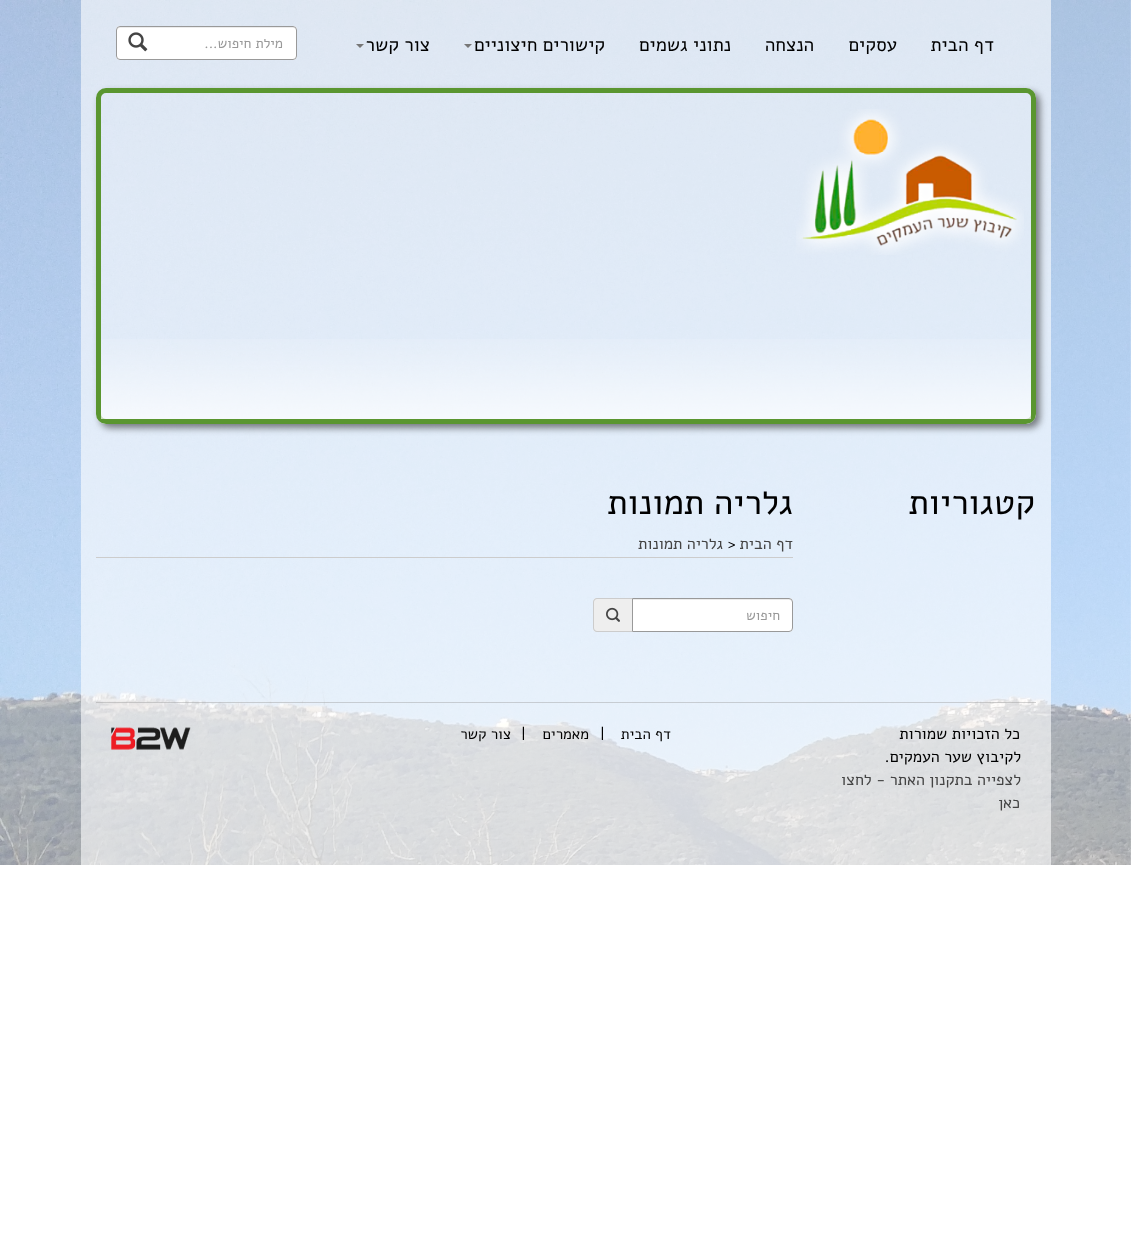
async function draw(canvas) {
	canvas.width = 1131;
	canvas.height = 1254;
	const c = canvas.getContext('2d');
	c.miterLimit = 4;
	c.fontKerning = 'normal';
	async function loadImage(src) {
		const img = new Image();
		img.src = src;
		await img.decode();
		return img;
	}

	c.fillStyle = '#fff';
	c.fillRect(0, 0, 1131, 1254);
	c.drawImage(await loadImage('img1.png'), 0, 0, 1131, 865);
	c.fillStyle = '#ffffff99';
	c.fillRect(81, 0, 970, 865);
	c.direction = 'rtl';
	c.font = '19px Alef';
	c.fillStyle = '#000';
	for (const [text, x, y] of [
		['דף הבית', 994, 51],
		['עסקים', 897, 51],
		['הנצחה', 814, 51],
		['נתוני גשמים', 731, 51],
		['קישורים חיצוניים', 605, 51],
	]) {
		c.fillText(text, x, y);
	}
	c.fillStyle = '#777';
	c.beginPath();
	c.moveTo(464, 44);
	c.lineTo(472, 44);
	c.lineTo(468, 48);
	c.closePath();
	c.fill();
	c.fillStyle = '#000';
	c.fillText('צור קשר', 430, 51);
	c.fillStyle = '#777';
	c.beginPath();
	c.moveTo(356, 44);
	c.lineTo(364, 44);
	c.lineTo(360, 48);
	c.closePath();
	c.fill();
	c.fillStyle = '#fff';
	c.beginPath();
	c.roundRect(116, 26, 181, 34, 4);
	c.fill();
	c.fillStyle = '#ececec';
	c.beginPath();
	c.moveTo(120, 28);
	c.lineTo(293, 28);
	c.bezierCurveTo(295, 28, 296, 29, 296, 31);
	c.lineTo(296, 30);
	c.bezierCurveTo(296, 28, 295, 27, 293, 27);
	c.lineTo(120, 27);
	c.bezierCurveTo(118, 27, 117, 28, 117, 30);
	c.lineTo(117, 31);
	c.bezierCurveTo(117, 29, 118, 28, 120, 28);
	c.closePath();
	c.fill();
	c.beginPath();
	c.roundRect(116.5, 26.5, 180, 33, 3.5);
	c.strokeStyle = '#999';
	c.stroke();
	c.font = '14px Alef';
	c.fillStyle = '#999';
	c.fillText('מילת חיפוש...', 283, 48);
	c.drawImage(await loadImage('img2.png'), 128, 32, 20, 20);
	c.save();
	c.beginPath();
	c.moveTo(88, 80);
	c.lineTo(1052, 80);
	c.lineTo(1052, 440);
	c.lineTo(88, 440);
	c.closePath();
	c.moveTo(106, 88);
	c.lineTo(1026, 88);
	c.bezierCurveTo(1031.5, 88, 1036, 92.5, 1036, 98);
	c.lineTo(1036, 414);
	c.bezierCurveTo(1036, 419.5, 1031.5, 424, 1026, 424);
	c.lineTo(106, 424);
	c.bezierCurveTo(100.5, 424, 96, 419.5, 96, 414);
	c.lineTo(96, 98);
	c.bezierCurveTo(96, 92.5, 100.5, 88, 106, 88);
	c.closePath();
	c.clip('evenodd');
	c.fillStyle = '#3232329e';
	c.filter = 'blur(3.5px)';
	c.beginPath();
	c.roundRect(100, 92, 940, 336, 10);
	c.fill();
	c.filter = 'none';
	c.restore();
	c.beginPath();
	c.roundRect(98.5, 90.5, 935, 331, 7.5);
	c.strokeStyle = '#5a9630';
	c.lineWidth = 5;
	c.stroke();
	c.drawImage(await loadImage('img3.png'), 101, 339, 930, 80);
	c.drawImage(await loadImage('img4.png'), 796, 109, 228, 146);
	c.font = '35px Alef';
	c.fillStyle = '#000';
	c.fillText('קטגוריות', 1035, 514);
	c.fillText('גלריה תמונות', 793, 514);
	c.font = '16px Alef';
	c.fillStyle = '#444';
	c.fillText('דף הבית', 793, 549);
	c.direction = 'ltr';
	c.fillStyle = '#000';
	c.fillText('>', 728, 549);
	c.direction = 'rtl';
	c.fillStyle = '#444';
	c.fillText('גלריה תמונות', 723, 549);
	c.fillStyle = '#ccc';
	c.fillRect(96, 557, 697, 1);
	c.fillStyle = '#fff';
	c.beginPath();
	c.roundRect(632, 598, 161, 34, [0, 4, 4, 0]);
	c.fill();
	c.fillStyle = '#ececec';
	c.beginPath();
	c.moveTo(633, 600);
	c.lineTo(789, 600);
	c.bezierCurveTo(791, 600, 792, 601, 792, 603);
	c.bezierCurveTo(792, 601, 792, 599, 790, 599);
	c.lineTo(633, 599);
	c.closePath();
	c.fill();
	c.beginPath();
	c.roundRect(632.5, 598.5, 160, 33, [0, 3.5, 3.5, 0]);
	c.strokeStyle = '#999';
	c.lineWidth = 1;
	c.stroke();
	c.font = '14px Alef';
	c.fillStyle = '#999';
	c.fillText('חיפוש', 780, 620);
	c.fillStyle = '#eee';
	c.beginPath();
	c.roundRect(593, 598, 39, 34, [4, 0, 0, 4]);
	c.fill();
	c.fillStyle = '#ccc';
	c.beginPath();
	c.moveTo(597, 598);
	c.lineTo(632, 598);
	c.lineTo(632, 632);
	c.lineTo(597, 632);
	c.bezierCurveTo(595, 632, 593, 630, 593, 628);
	c.lineTo(593, 602);
	c.bezierCurveTo(593, 600, 595, 598, 597, 598);
	c.closePath();
	c.moveTo(597, 599);
	c.lineTo(632, 599);
	c.lineTo(632, 631);
	c.lineTo(597, 631);
	c.bezierCurveTo(595.5, 631, 594, 629.5, 594, 628);
	c.lineTo(594, 602);
	c.bezierCurveTo(594, 600.5, 595.5, 599, 597, 599);
	c.closePath();
	c.fill('evenodd');
	c.drawImage(await loadImage('img5.png'), 606, 607, 14, 15);
	c.fillStyle = '#9999996b';
	c.fillRect(96, 702, 940, 1);
	c.font = '16px Alef';
	c.fillStyle = '#000';
	c.fillText('כל הזכויות שמורות', 1020, 739);
	c.fillText('לקיבוץ שער העמקים.', 1021, 762);
	c.fillStyle = '#444';
	c.fillText('לצפייה בתקנון האתר - לחצו', 1021, 785);
	c.fillText('כאן', 1020, 808);
	c.font = '15px Alef';
	c.fillStyle = '#000';
	c.fillText('דף הבית', 671, 739);
	c.direction = 'ltr';
	c.font = '16px Alef';
	c.fillText('|', 600, 739);
	c.direction = 'rtl';
	c.font = '15px Alef';
	c.fillText('מאמרים', 589, 739);
	c.direction = 'ltr';
	c.font = '16px Alef';
	c.fillText('|', 521, 739);
	c.direction = 'rtl';
	c.font = '15px Alef';
	c.fillText('צור קשר', 511, 739);
	c.drawImage(await loadImage('img6.png'), 111, 727, 80, 23);
}

draw(document.querySelector('canvas'));
